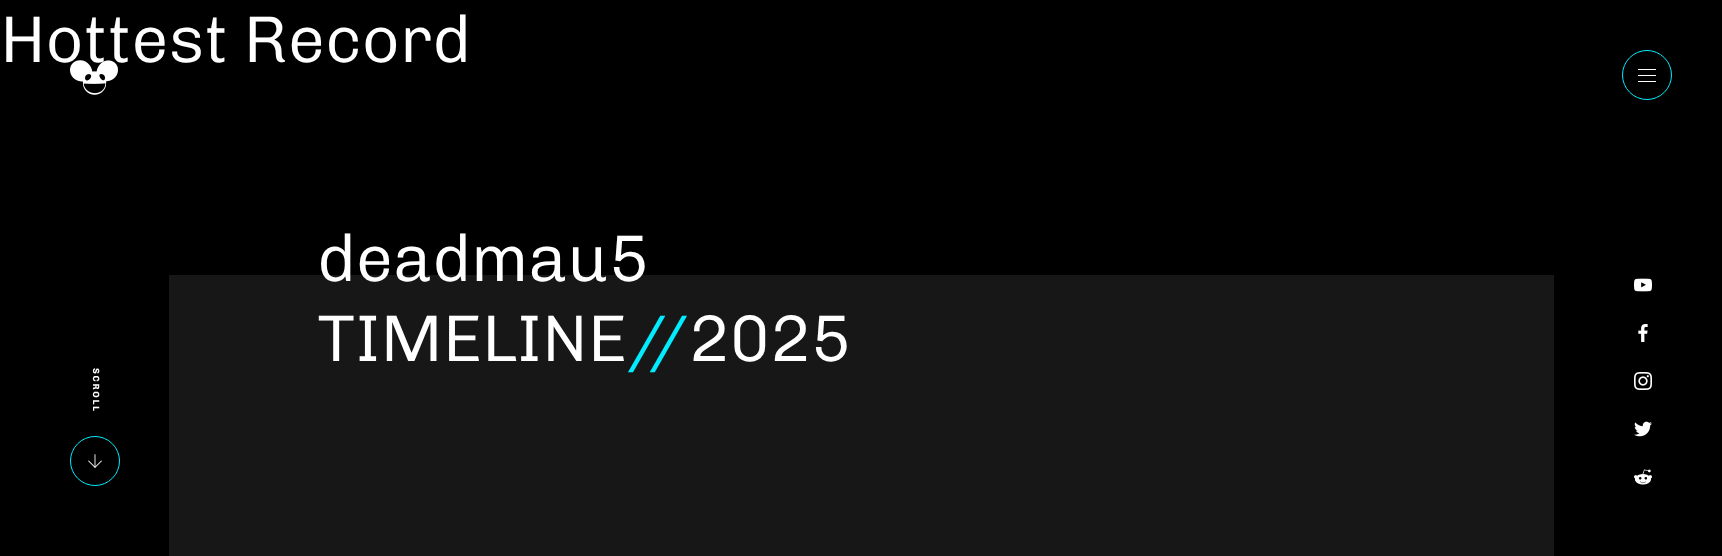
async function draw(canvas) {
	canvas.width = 1722;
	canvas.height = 556;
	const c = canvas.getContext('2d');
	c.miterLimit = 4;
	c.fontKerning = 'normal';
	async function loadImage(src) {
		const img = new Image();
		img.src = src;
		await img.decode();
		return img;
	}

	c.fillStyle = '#000';
	c.fillRect(0, 0, 1722, 556);
	c.font = '300 66px Chivo';
	c.fillStyle = '#fff';
	c.fillText('Hottest Record', 0, 62);
	c.fillStyle = '#171717';
	c.fillRect(169, 275, 1385, 281);
	c.fillStyle = '#fff';
	c.fillText('deadmau5', 317, 281);
	c.fillText('TIMELINE', 317, 361);
	c.fillStyle = '#01ecff';
	c.fillText('//', 627, 361);
	c.fillStyle = '#fff';
	c.fillText('2025', 689, 361);
	c.drawImage(await loadImage('img1.png'), 70, 60, 48, 35);
	c.beginPath();
	c.arc(1647, 75, 24.5, 0, 2 * Math.PI);
	c.strokeStyle = '#01ecff';
	c.stroke();
	for (const [x, y, w, h, color] of [
		[1638, 69, 18, 1, '#fff'],
		[1638, 75, 18, 1, '#fff'],
		[1638, 81, 18, 1, '#fff'],
	]) {
		c.fillStyle = color;
		c.fillRect(x, y, w, h);
	}
	c.letterSpacing = '1.75px';
	c.font = 'bold 9px Chivo';
	c.save();
	c.translate(93, 368);
	c.rotate(90 * Math.PI / 180);
	c.fillText('SCROLL', 0, 0);
	c.restore();
	c.beginPath();
	c.arc(95, 461, 24.5, 0, 2 * Math.PI);
	c.stroke();
	c.drawImage(await loadImage('img2.png'), 88, 454, 14, 14);
	c.drawImage(await loadImage('img3.png'), 1634, 278, 18, 14);
	c.drawImage(await loadImage('img4.png'), 1638, 324, 10, 18);
	c.drawImage(await loadImage('img5.png'), 1634, 372, 18, 18);
	c.drawImage(await loadImage('img6.png'), 1634, 421, 18, 16);
	c.drawImage(await loadImage('img7.png'), 1634, 469, 18, 16);
}

draw(document.querySelector('canvas'));
